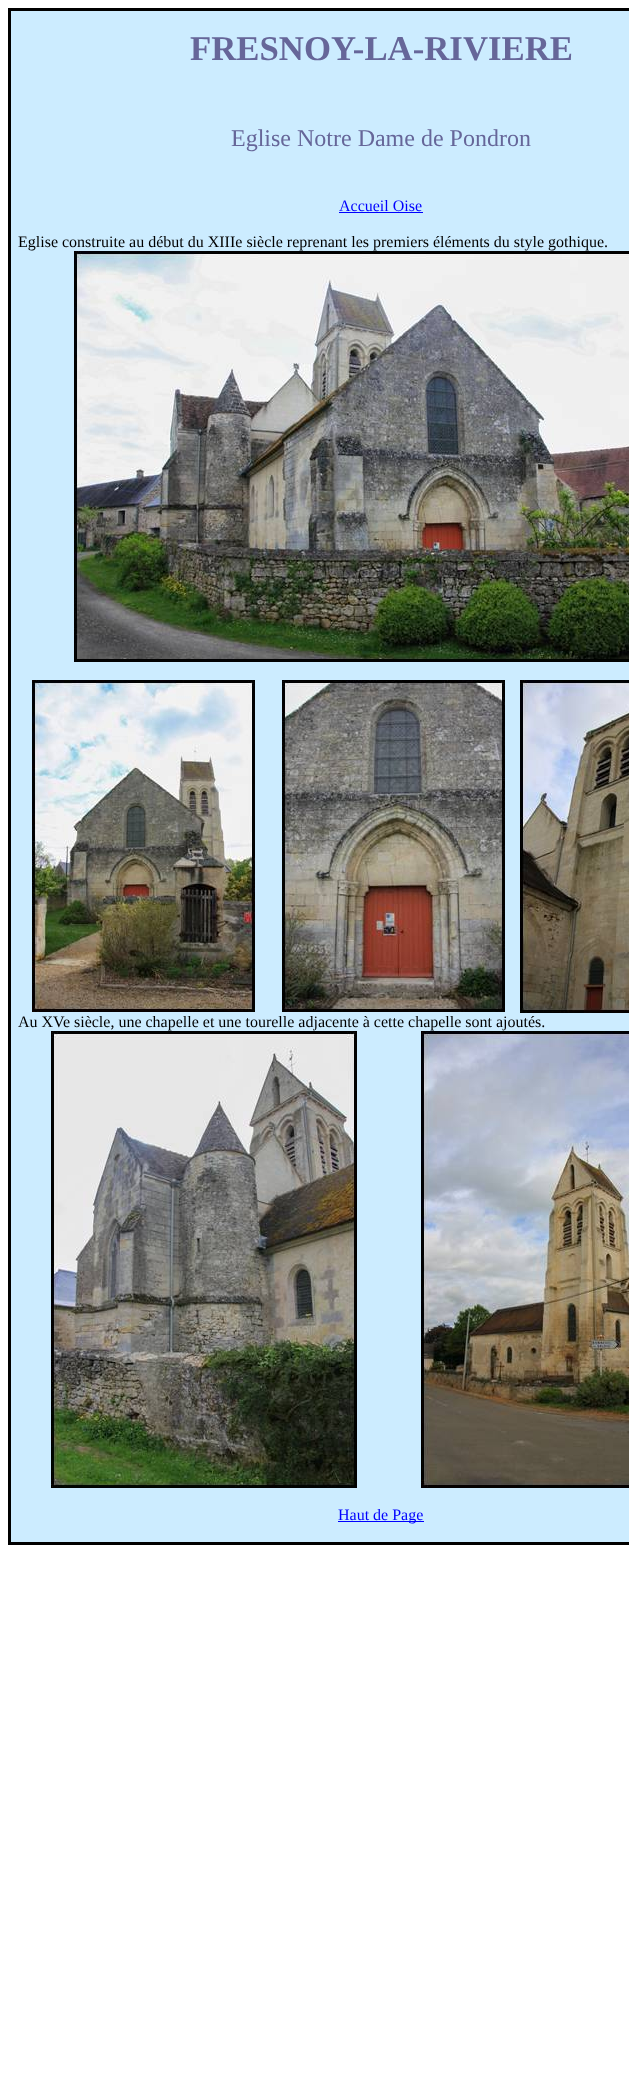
async function draw(canvas) {
	canvas.width = 629;
	canvas.height = 2098;
	const c = canvas.getContext('2d');
	c.miterLimit = 4;
	c.fontKerning = 'normal';
	async function loadImage(src) {
		const img = new Image();
		img.src = src;
		await img.decode();
		return img;
	}

	c.fillStyle = '#fff';
	c.fillRect(0, 0, 629, 2098);
	for (const [x, y, w, h, color] of [
		[11, 11, 618, 1531, '#ccecff'],
		[8, 8, 621, 3, '#000'],
		[8, 1542, 621, 3, '#000'],
		[8, 232, 3, 1313, '#000'],
		[8, 8, 3, 227, '#000'],
	]) {
		c.fillStyle = color;
		c.fillRect(x, y, w, h);
	}
	c.font = 'bold 34.75px Liberation Serif';
	c.fillStyle = '#669';
	c.fillText('FRESNOY-LA-RIVIERE', 190, 60);
	c.font = '24px Liberation Serif';
	c.fillText('Eglise Notre Dame de Pondron', 231, 146);
	c.font = '16px Liberation Serif';
	c.fillStyle = '#00f';
	c.fillText('Accueil Oise', 339, 211);
	c.fillRect(339, 212, 84, 1);
	c.fillStyle = '#000';
	c.fillText('Eglise construite au début du XIIIe siècle reprenant les premiers éléments du style gothique.', 18, 247);
	c.drawImage(await loadImage('img1.png'), 74, 251, 555, 411);
	c.drawImage(await loadImage('img2.png'), 32, 680, 223, 332);
	c.drawImage(await loadImage('img3.png'), 282, 680, 223, 332);
	c.drawImage(await loadImage('img4.png'), 520, 680, 109, 333);
	c.fillText('Au XVe siècle, une chapelle et une tourelle adjacente à cette chapelle sont ajoutés.', 18, 1027);
	c.drawImage(await loadImage('img5.png'), 51, 1031, 306, 457);
	c.drawImage(await loadImage('img6.png'), 421, 1031, 208, 457);
	c.fillStyle = '#00f';
	c.fillRect(338, 1521, 86, 1);
	c.fillText('Haut de Page', 338, 1520);
}

draw(document.querySelector('canvas'));
